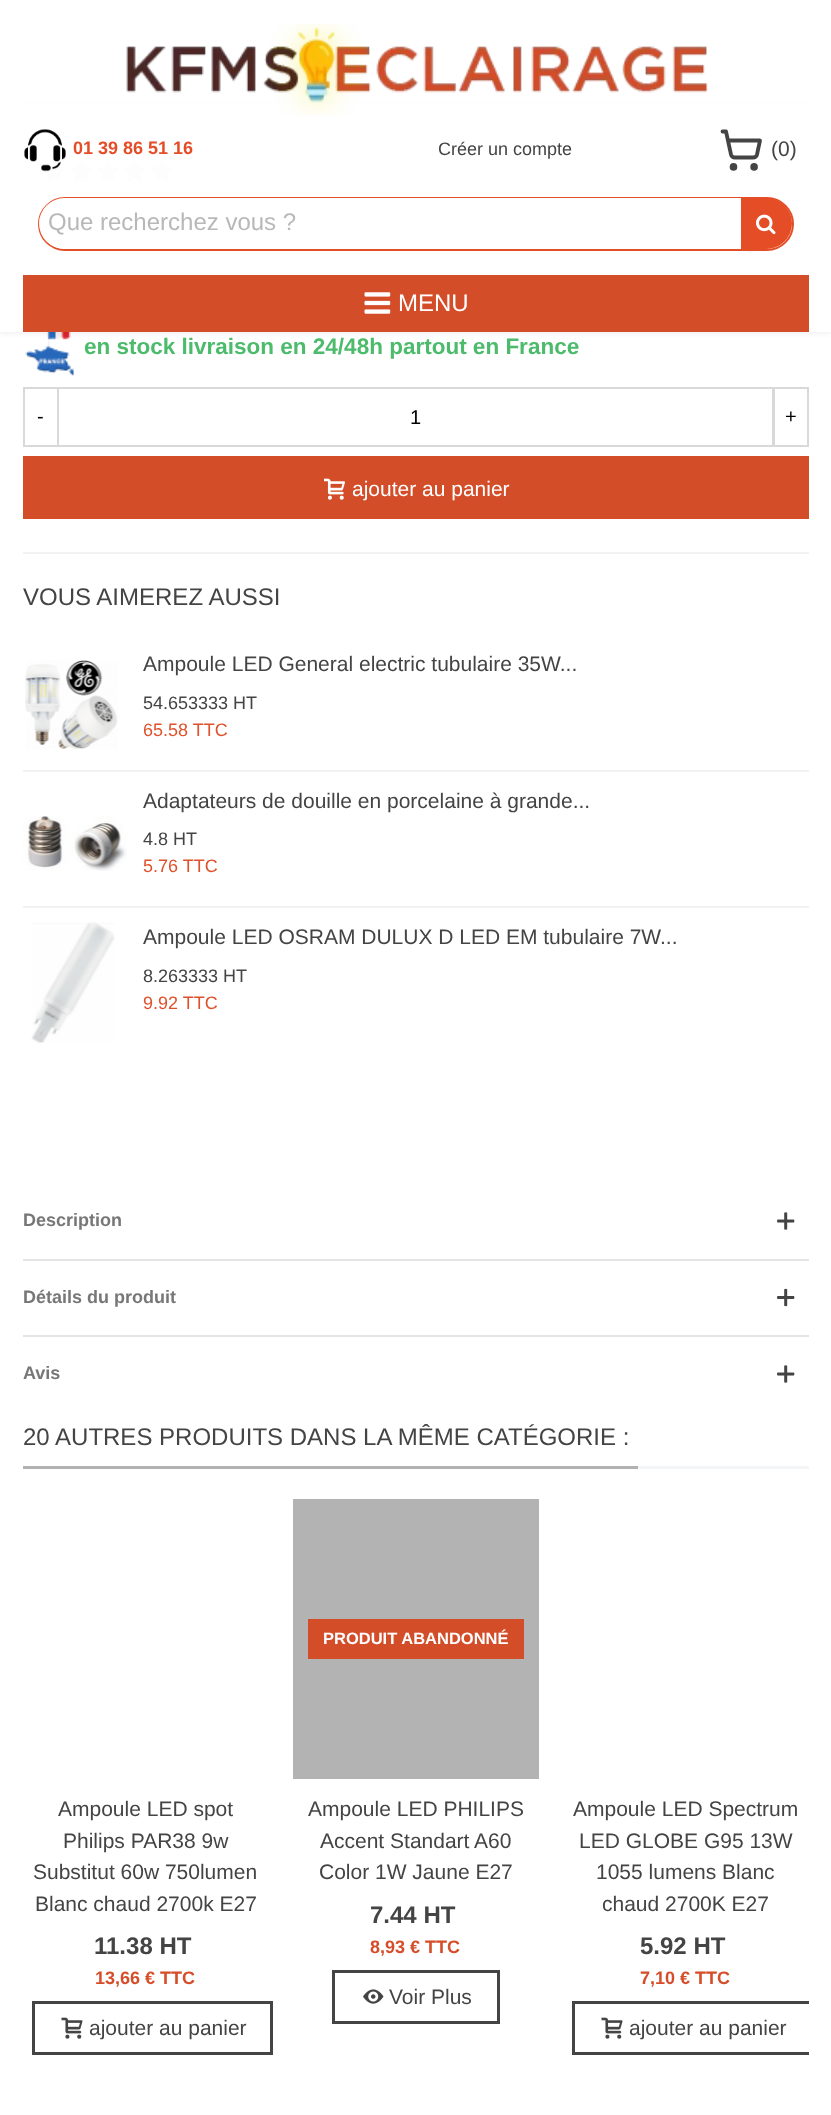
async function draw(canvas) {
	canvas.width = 831;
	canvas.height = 2115;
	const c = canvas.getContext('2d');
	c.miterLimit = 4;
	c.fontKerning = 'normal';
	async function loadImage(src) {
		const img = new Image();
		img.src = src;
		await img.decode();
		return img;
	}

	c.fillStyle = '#fff';
	c.fillRect(0, 0, 831, 2115);
	c.strokeStyle = '#e6e6e6';
	c.lineWidth = 2;
	c.strokeRect(24, 102, 784, 157);
	c.drawImage(await loadImage('img5.png'), 41, 159, 25, 24);
	c.drawImage(await loadImage('img5.png'), 68, 159, 25, 24);
	c.drawImage(await loadImage('img5.png'), 95, 159, 25, 24);
	c.drawImage(await loadImage('img5.png'), 122, 159, 25, 24);
	c.drawImage(await loadImage('img5.png'), 149, 159, 25, 24);
	c.drawImage(await loadImage('img6.png'), 25, 332, 50, 44);
	c.save();
	c.beginPath();
	c.moveTo(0, 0);
	c.lineTo(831, 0);
	c.lineTo(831, 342);
	c.lineTo(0, 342);
	c.closePath();
	c.moveTo(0, 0);
	c.lineTo(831, 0);
	c.lineTo(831, 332);
	c.lineTo(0, 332);
	c.closePath();
	c.clip('evenodd');
	c.fillStyle = '#0000001a';
	c.filter = 'blur(3px)';
	c.beginPath();
	c.rect(0, 0, 831, 332);
	c.fill();
	c.filter = 'none';
	c.restore();
	c.fillStyle = '#fffffff2';
	c.fillRect(0, 101, 831, 231);
	c.drawImage(await loadImage('img1.png'), 126, 24, 582, 92);
	c.drawImage(await loadImage('img2.png'), 24, 129, 42, 43);
	c.font = 'bold 18px Liberation Sans';
	c.fillStyle = '#e54d26';
	c.fillText('01 39 86 51 16', 73, 154);
	c.font = '18px Liberation Sans';
	c.fillStyle = '#444';
	c.fillText('Créer un compte', 438, 155);
	c.beginPath();
	c.arc(733.5, 166.9, 1.9, 0, 2 * Math.PI);
	c.strokeStyle = '#444';
	c.lineWidth = 3.8;
	c.stroke();
	c.beginPath();
	c.arc(754.1, 166.9, 1.9, 0, 2 * Math.PI);
	c.stroke();
	c.beginPath();
	c.moveTo(722.5, 131.5);
	c.lineTo(726, 131.5);
	c.lineTo(731, 154.5);
	c.bezierCurveTo(731.5, 156.5, 733, 157.5, 735, 157.5);
	c.lineTo(753, 157.5);
	c.bezierCurveTo(755, 157.5, 756.5, 156.5, 757, 154.5);
	c.lineTo(760, 140.5);
	c.lineTo(728, 140.5);
	c.lineCap = 'round';
	c.lineJoin = 'round';
	c.stroke();
	c.font = '21px Liberation Sans';
	c.fillText('(0)', 771, 156);
	c.beginPath();
	c.roundRect(39, 198, 754, 52, 26);
	c.strokeStyle = '#e54d26';
	c.lineWidth = 2;
	c.lineJoin = 'miter';
	c.stroke();
	c.fillStyle = '#fff';
	c.beginPath();
	c.roundRect(39, 198, 704, 51, [25.5, 0, 0, 25.5]);
	c.fill();
	c.font = '24px Liberation Sans';
	c.fillStyle = '#b9b8b8';
	c.fillText('Que recherchez vous ?', 48, 230);
	c.fillStyle = '#e54d26';
	c.beginPath();
	c.roundRect(741, 198, 51, 51, [0, 25.5, 25.5, 0]);
	c.fill();
	c.drawImage(await loadImage('img3.png'), 756, 214, 20, 21);
	c.fillStyle = '#d34d29';
	c.fillRect(23, 275, 786, 57);
	c.drawImage(await loadImage('img4.png'), 364, 292, 27, 22);
	c.fillStyle = '#fff';
	c.fillText('MENU', 398, 311);
	c.font = 'bold 22.5px Liberation Sans';
	c.fillStyle = '#4cbb6c';
	c.fillText('en stock livraison en 24/48h partout en France', 84, 354);
	c.strokeStyle = '#d9d9d9';
	c.strokeRect(24, 388, 34, 58);
	c.font = '20px Liberation Sans';
	c.fillStyle = '#000';
	c.fillText('-', 37, 423);
	c.strokeRect(58, 388, 715, 58);
	c.fillText('1', 410, 424);
	c.strokeRect(774, 388, 34, 58);
	c.fillText('+', 785, 423);
	c.fillStyle = '#d34d29';
	c.fillRect(23, 456, 786, 63);
	c.drawImage(await loadImage('img7.png'), 324, 478, 21, 22);
	c.font = '21px Liberation Sans';
	c.fillStyle = '#fff';
	c.fillText('ajouter au panier', 352, 496);
	c.fillStyle = '#f2f2f2';
	c.fillRect(23, 552, 786, 2);
	c.font = '24px Liberation Sans';
	c.fillStyle = '#444';
	c.fillText('VOUS AIMEREZ AUSSI', 23, 605);
	c.fillStyle = '#f2f2f2';
	c.fillRect(23, 770, 786, 2);
	c.drawImage(await loadImage('img8.png'), 25, 660, 93, 89);
	c.font = '21px Liberation Sans';
	c.fillStyle = '#444';
	c.fillText('Ampoule LED General electric tubulaire 35W...', 143, 671);
	c.font = '18px Liberation Sans';
	c.fillText('54.653333 HT', 143, 709);
	c.fillStyle = '#df512b';
	c.fillText('65.58 TTC', 143, 736);
	c.fillStyle = '#f2f2f2';
	c.fillRect(23, 906, 786, 2);
	c.drawImage(await loadImage('img9.png'), 23, 816, 104, 55);
	c.font = '21px Liberation Sans';
	c.fillStyle = '#444';
	c.fillText('Adaptateurs de douille en porcelaine à grande...', 143, 808);
	c.font = '18px Liberation Sans';
	c.fillText('4.8 HT', 143, 845);
	c.fillStyle = '#df512b';
	c.fillText('5.76 TTC', 143, 872);
	c.drawImage(await loadImage('img10.png'), 31, 922, 84, 121);
	c.font = '21px Liberation Sans';
	c.fillStyle = '#444';
	c.fillText('Ampoule LED OSRAM DULUX D LED EM tubulaire 7W...', 143, 944);
	c.font = '18px Liberation Sans';
	c.fillText('8.263333 HT', 143, 982);
	c.fillStyle = '#df512b';
	c.fillText('9.92 TTC', 143, 1009);
	c.fillStyle = '#e5e5e5';
	c.fillRect(23, 1259, 786, 2);
	c.font = 'bold 18px Liberation Sans';
	c.fillStyle = '#777';
	c.fillText('Description', 23, 1226);
	c.drawImage(await loadImage('img11.png'), 777, 1212, 18, 18);
	c.fillStyle = '#e5e5e5';
	c.fillRect(23, 1335, 786, 2);
	c.fillStyle = '#777';
	c.fillText('Détails du produit', 23, 1303);
	c.drawImage(await loadImage('img12.png'), 777, 1288, 18, 19);
	c.fillText('Avis', 23, 1379);
	c.drawImage(await loadImage('img11.png'), 777, 1365, 18, 18);
	c.fillStyle = '#f4f5f6';
	c.fillRect(638, 1466, 171, 3);
	c.fillStyle = '#b2b2b2';
	c.fillRect(23, 1466, 615, 3);
	c.font = '24px Liberation Sans';
	c.fillStyle = '#444';
	c.fillText('20 AUTRES PRODUITS DANS LA MÊME CATÉGORIE :', 23, 1445);
	c.font = '21px Liberation Sans';
	for (const [text, x, y] of [
		['Ampoule LED spot', 58, 1816],
		['Philips PAR38 9w', 63, 1848],
		['Substitut 60w 750lumen', 33, 1879],
		['Blanc chaud 2700k E27', 35, 1911],
	]) {
		c.fillText(text, x, y);
	}
	c.font = 'bold 24px Liberation Sans';
	c.fillText('11.38 HT', 94, 1954);
	c.font = 'bold 18px Liberation Sans';
	c.fillStyle = '#d64e29';
	c.fillText('13,66 € TTC', 95, 1984);
	c.strokeStyle = '#444';
	c.lineWidth = 3;
	c.strokeRect(33.5, 2002.5, 238, 51);
	c.drawImage(await loadImage('img13.png'), 61, 2017, 22, 22);
	c.font = '21px Liberation Sans';
	c.fillStyle = '#444';
	c.fillText('ajouter au panier', 89, 2035);
	c.fillStyle = '#b3b3b3';
	c.fillRect(293, 1499, 246, 280);
	c.fillStyle = '#d34d29';
	c.fillRect(308, 1619, 216, 40);
	c.font = 'bold 16.5px Liberation Sans';
	c.fillStyle = '#fff';
	c.fillText('PRODUIT ABANDONNÉ', 323, 1644);
	c.font = '21px Liberation Sans';
	c.fillStyle = '#444';
	for (const [text, x, y] of [
		['Ampoule LED PHILIPS', 308, 1816],
		['Accent Standart A60', 320, 1848],
		['Color 1W Jaune E27', 319, 1879],
	]) {
		c.fillText(text, x, y);
	}
	c.font = 'bold 24px Liberation Sans';
	c.fillText('7.44 HT', 370, 1923);
	c.font = 'bold 18px Liberation Sans';
	c.fillStyle = '#d64e29';
	c.fillText('8,93 € TTC', 370, 1953);
	c.strokeRect(333.5, 1971.5, 165, 51);
	c.drawImage(await loadImage('img14.png'), 363, 1989, 21, 15);
	c.font = '21px Liberation Sans';
	c.fillStyle = '#444';
	for (const [text, x, y] of [
		['Voir Plus', 389, 2004],
		['Ampoule LED Spectrum', 573, 1816],
		['LED GLOBE G95 13W', 579, 1848],
		['1055 lumens Blanc', 596, 1879],
		['chaud 2700K E27', 602, 1911],
	]) {
		c.fillText(text, x, y);
	}
	c.font = 'bold 24px Liberation Sans';
	c.fillText('5.92 HT', 640, 1954);
	c.font = 'bold 18px Liberation Sans';
	c.fillStyle = '#d64e29';
	c.fillText('7,10 € TTC', 640, 1984);
	c.save();
	c.beginPath();
	c.rect(23, 1499, 786, 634);
	c.clip();
	c.strokeRect(573.5, 2002.5, 238, 51);
	c.restore();
	c.drawImage(await loadImage('img13.png'), 601, 2017, 22, 22);
	c.font = '21px Liberation Sans';
	c.fillStyle = '#444';
	c.fillText('ajouter au panier', 629, 2035);
}

draw(document.querySelector('canvas'));
